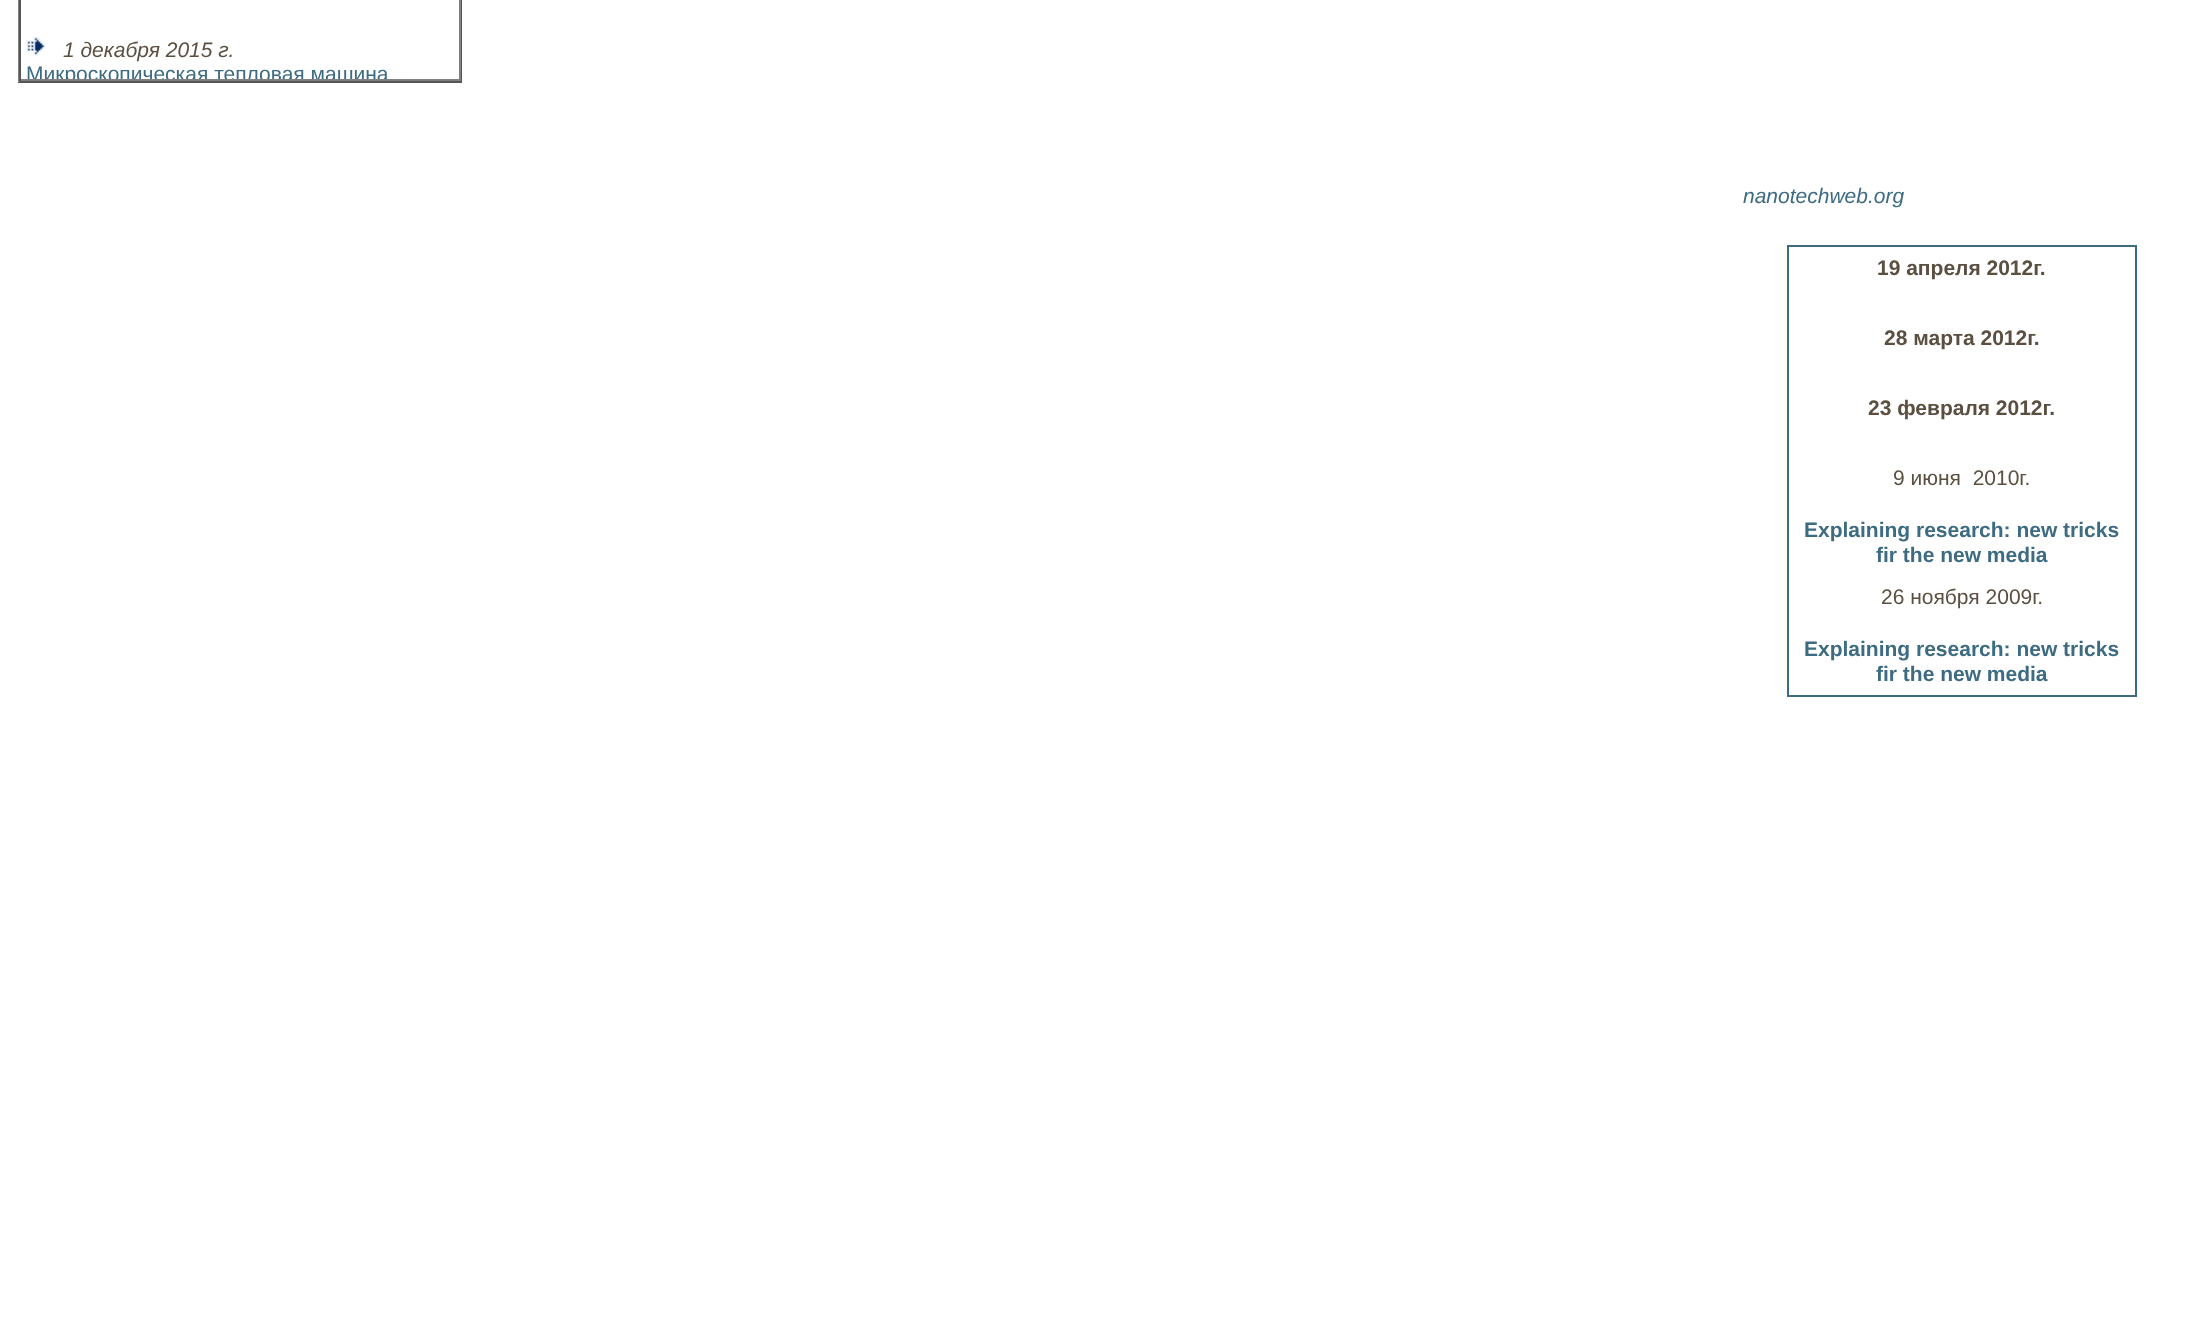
async function draw(canvas) {
	canvas.width = 2205;
	canvas.height = 1340;
	const c = canvas.getContext('2d');
	c.miterLimit = 4;
	c.fontKerning = 'normal';
	async function loadImage(src) {
		const img = new Image();
		img.src = src;
		await img.decode();
		return img;
	}

	c.fillStyle = '#fff';
	c.fillRect(0, 0, 2205, 1340);
	for (const [x, y, w, h, color] of [
		[461, 0, 1, 82, '#555'],
		[18, 81, 444, 2, '#555'],
		[18, 0, 2, 82, '#808080'],
		[459, 0, 2, 81, '#808080'],
		[19, 79, 441, 2, '#808080'],
		[19, 0, 2, 81, '#555'],
	]) {
		c.fillStyle = color;
		c.fillRect(x, y, w, h);
	}
	c.drawImage(await loadImage('img1.png'), 26, 36, 20, 20);
	c.font = 'italic 21px Liberation Sans';
	c.fillStyle = '#5a4f41';
	c.fillText('1 декабря 2015 г.', 63, 57);
	c.save();
	c.beginPath();
	c.rect(21, 0, 438, 79);
	c.clip();
	c.font = '21px Liberation Sans';
	c.fillStyle = '#3d6b82';
	c.fillText('Микроскопическая тепловая машина', 26, 81);
	c.restore();
	c.fillStyle = '#3d6b82';
	c.fillText('nanotechweb.org', 1743, 203);
	c.strokeStyle = '#3d6b82';
	c.lineWidth = 2;
	c.strokeRect(1788, 246, 348, 450);
	c.font = 'bold 21px Liberation Sans';
	c.fillStyle = '#5a4f41';
	for (const [text, x, y] of [
		['19 апреля 2012г.', 1877, 275],
		['28 марта 2012г.', 1884, 345],
		['23 февраля 2012г.', 1868, 415],
	]) {
		c.fillText(text, x, y);
	}
	c.font = '21px Liberation Sans';
	c.fillText('9 июня  2010г.', 1893, 485);
	c.font = 'bold 21px Liberation Sans';
	c.fillStyle = '#3d6b82';
	c.fillText('Explaining research: new tricks', 1804, 537);
	c.fillText('fir the new media', 1876, 562);
	c.font = '21px Liberation Sans';
	c.fillStyle = '#5a4f41';
	c.fillText('26 ноября 2009г.', 1881, 604);
	c.font = 'bold 21px Liberation Sans';
	c.fillStyle = '#3d6b82';
	c.fillText('Explaining research: new tricks', 1804, 656);
	c.fillText('fir the new media', 1876, 681);
}

draw(document.querySelector('canvas'));
